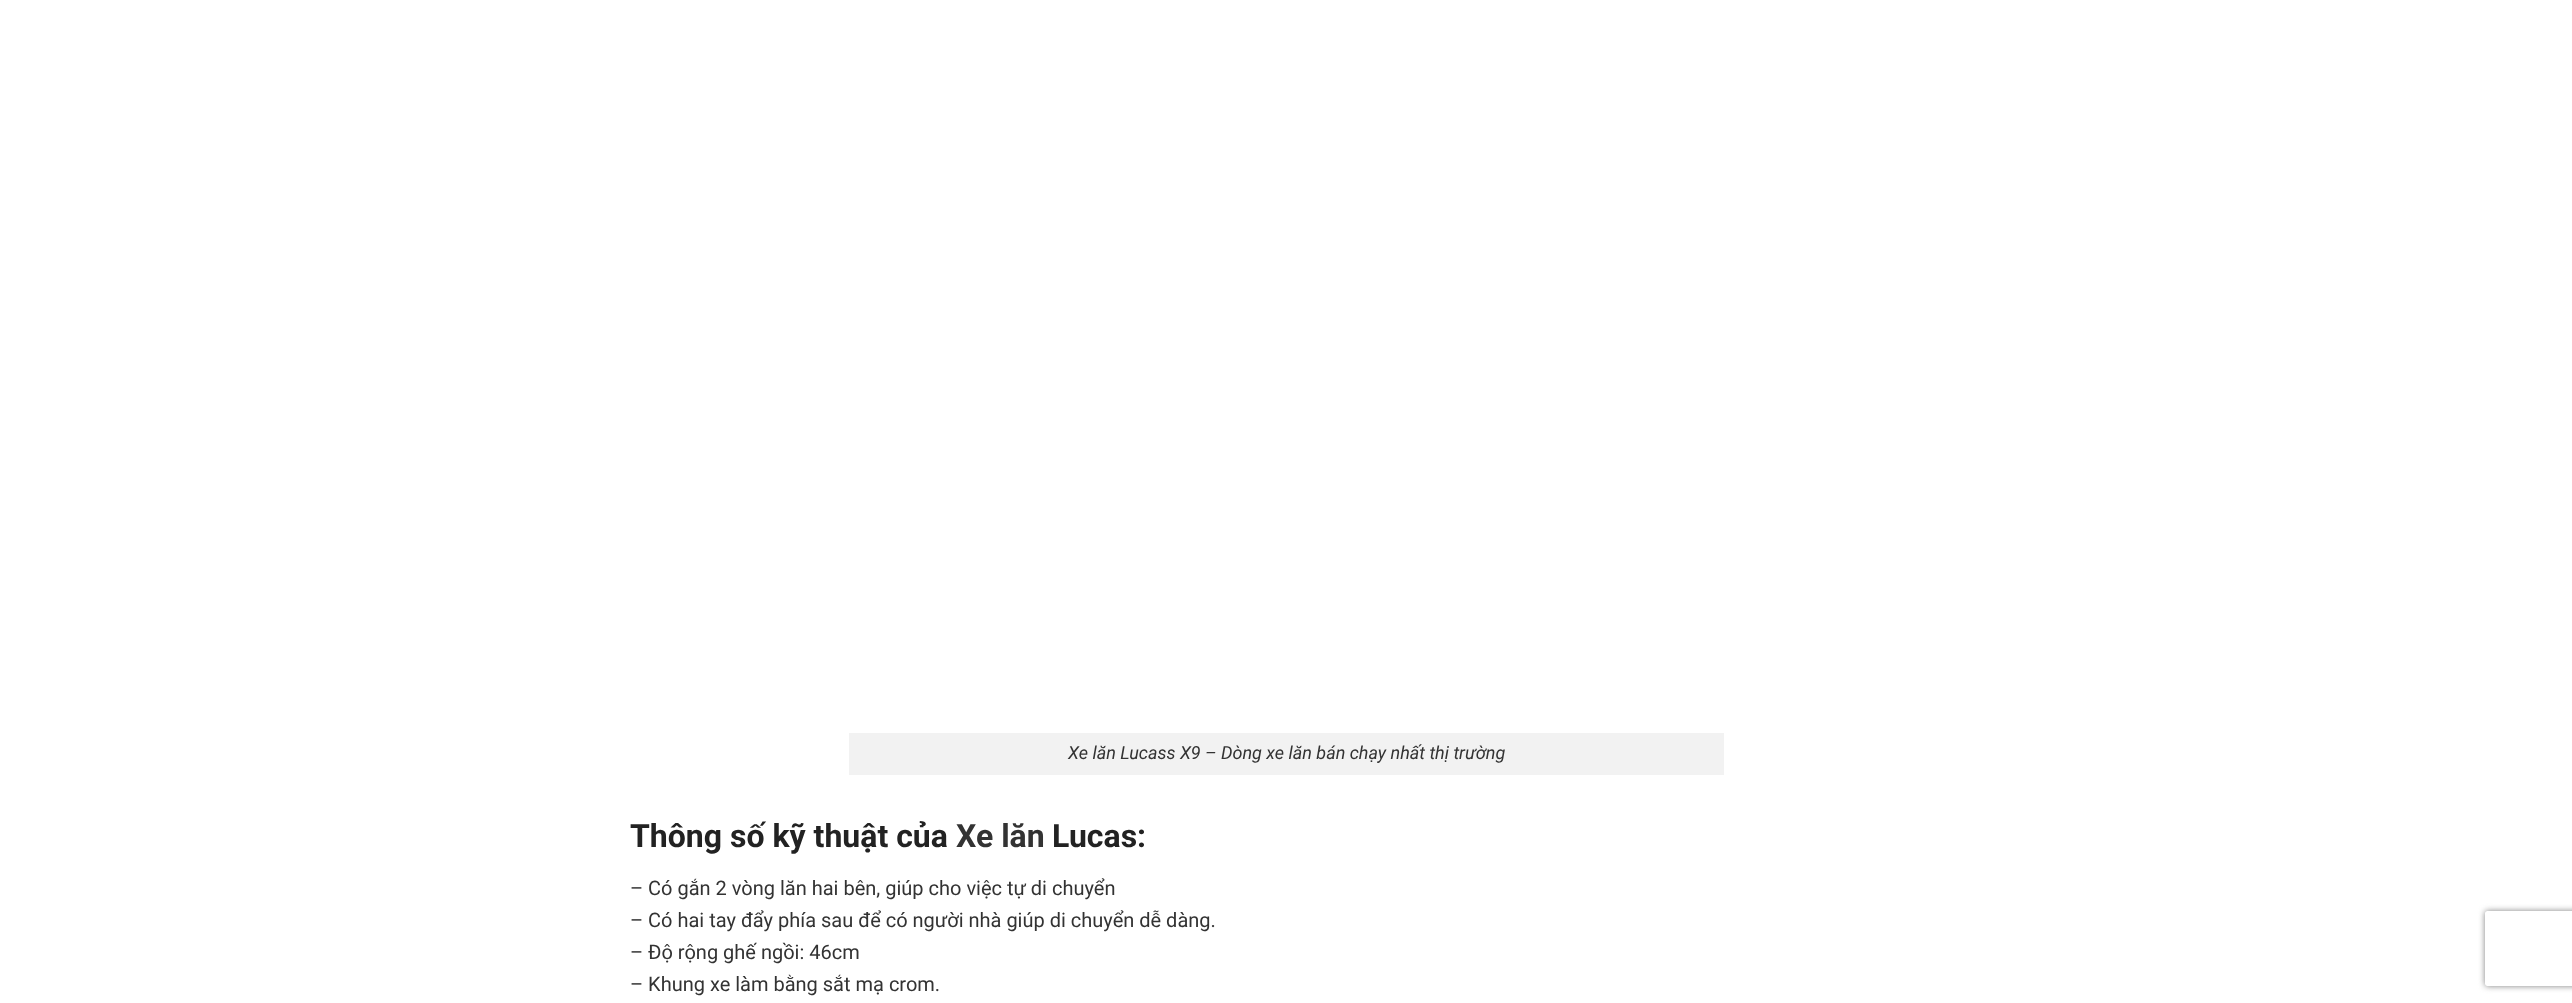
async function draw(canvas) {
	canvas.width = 2572;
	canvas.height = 1003;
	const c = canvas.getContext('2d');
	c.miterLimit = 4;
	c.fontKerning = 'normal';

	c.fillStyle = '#fff';
	c.fillRect(0, 0, 2572, 1003);
	c.fillStyle = '#f2f2f2';
	c.fillRect(849, 733, 875, 42);
	c.font = 'italic 18px Roboto';
	c.fillStyle = '#333';
	c.fillText('Xe lăn Lucass X9 – Dòng xe lăn bán chạy nhất thị trường', 1068, 759);
	c.font = 'bold 32px Roboto';
	c.fillStyle = '#222';
	c.fillText('Thông số kỹ thuật của', 630, 847);
	c.fillStyle = '#333';
	c.fillText('Xe lăn', 956, 847);
	c.fillStyle = '#222';
	c.fillText('Lucas:', 1052, 847);
	c.font = '20px Roboto';
	c.fillStyle = '#333';
	for (const [text, x, y] of [
		['– Có gắn 2 vòng lăn hai bên, giúp cho việc tự di chuyển', 630, 895],
		['– Có hai tay đẩy phía sau để có người nhà giúp di chuyển dễ dàng.', 630, 927],
		['– Độ rộng ghế ngồi: 46cm', 630, 959],
		['– Khung xe làm bằng sắt mạ crom.', 630, 991],
	]) {
		c.fillText(text, x, y);
	}
	c.save();
	c.beginPath();
	c.moveTo(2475, 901);
	c.lineTo(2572, 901);
	c.lineTo(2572, 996);
	c.lineTo(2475, 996);
	c.closePath();
	c.moveTo(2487.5, 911);
	c.lineTo(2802.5, 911);
	c.bezierCurveTo(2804, 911, 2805, 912, 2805, 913.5);
	c.lineTo(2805, 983.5);
	c.bezierCurveTo(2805, 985, 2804, 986, 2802.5, 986);
	c.lineTo(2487.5, 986);
	c.bezierCurveTo(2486, 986, 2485, 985, 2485, 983.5);
	c.lineTo(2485, 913.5);
	c.bezierCurveTo(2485, 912, 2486, 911, 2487.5, 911);
	c.closePath();
	c.clip('evenodd');
	c.fillStyle = '#808080';
	c.filter = 'blur(3px)';
	c.beginPath();
	c.roundRect(2485, 911, 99, 75, 2.5);
	c.fill();
	c.filter = 'none';
	c.restore();
}

draw(document.querySelector('canvas'));
